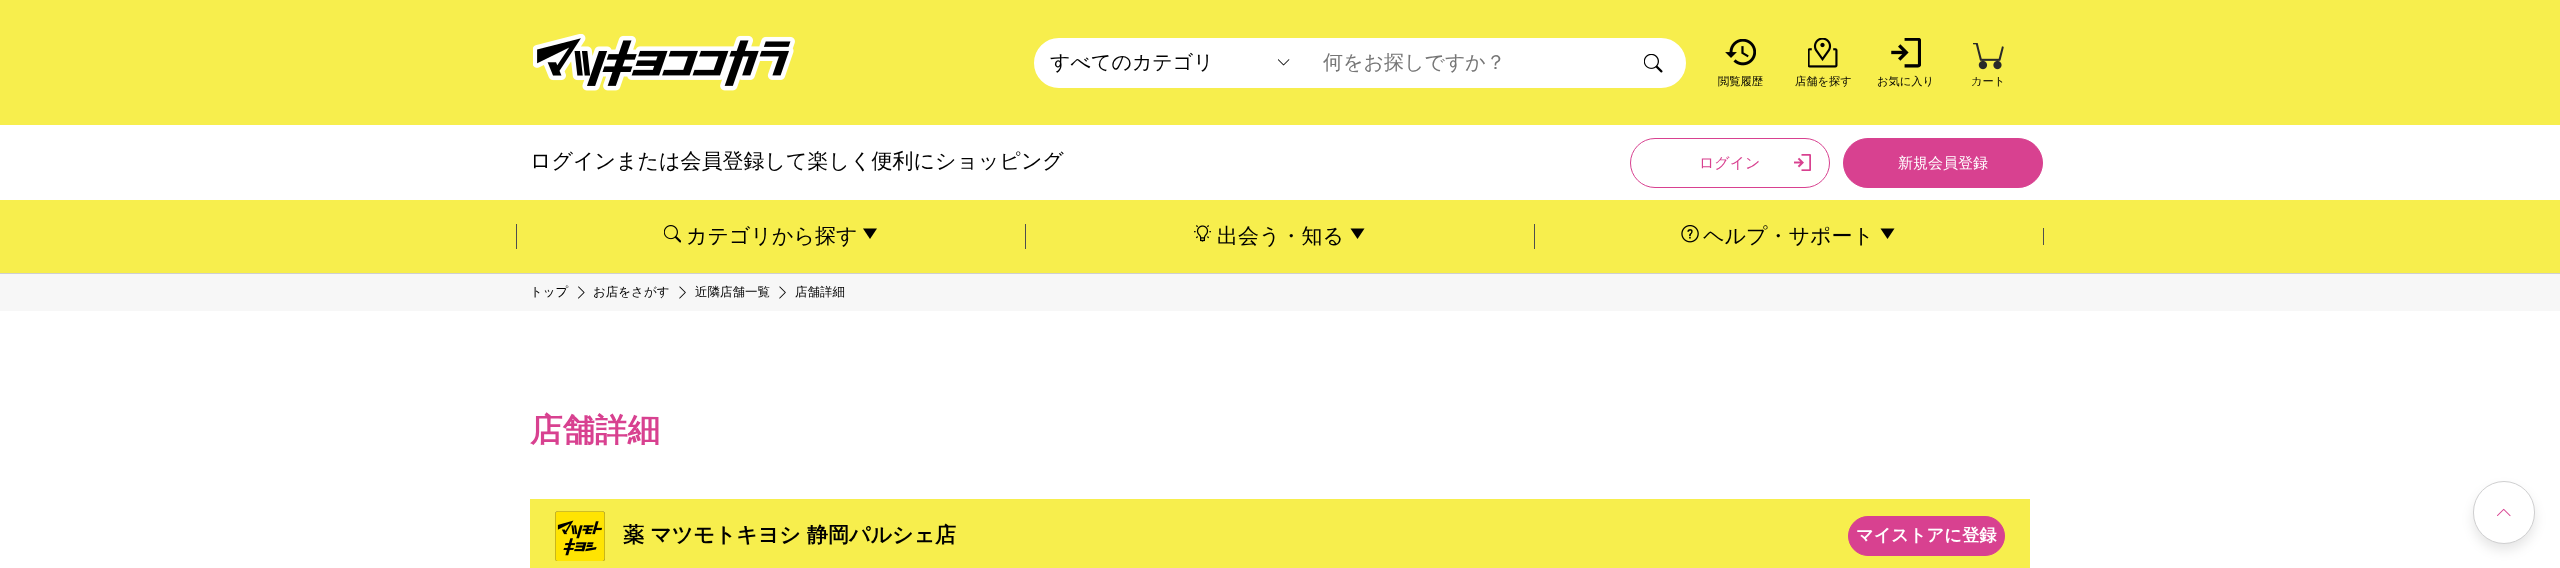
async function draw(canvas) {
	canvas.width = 2560;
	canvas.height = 568;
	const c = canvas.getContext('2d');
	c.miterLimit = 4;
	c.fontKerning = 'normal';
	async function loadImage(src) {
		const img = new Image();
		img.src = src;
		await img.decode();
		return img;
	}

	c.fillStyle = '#fff';
	c.fillRect(0, 0, 2560, 568);
	c.fillStyle = '#f7ee4d';
	c.fillRect(0, 0, 2560, 125);
	c.fillStyle = '#fff';
	c.beginPath();
	c.roundRect(1037, 41, 646, 44, 22);
	c.fill();
	c.strokeStyle = '#fff';
	c.lineWidth = 6;
	c.stroke();
	c.drawImage(await loadImage('img1.png'), 1278, 59, 12, 7);
	c.font = '500 20px WenQuanYi Zen Hei';
	c.fillStyle = '#000';
	c.fillText('すべてのカテゴリ', 1050, 69);
	c.fillStyle = '#757575';
	c.fillText('何をお探しですか？', 1323, 69);
	c.drawImage(await loadImage('img2.png'), 1644, 54, 19, 19);
	c.drawImage(await loadImage('img3.png'), 533, 34, 262, 57);
	c.drawImage(await loadImage('img4.png'), 1725, 39, 31, 27);
	c.font = '500 11.25px WenQuanYi Zen Hei';
	c.fillStyle = '#000';
	c.fillText('閲覧履歴', 1718, 85);
	c.drawImage(await loadImage('img5.png'), 1808, 38, 30, 30);
	c.fillText('店舗を探す', 1795, 85);
	c.drawImage(await loadImage('img6.png'), 1891, 38, 30, 30);
	c.fillText('お気に入り', 1877, 85);
	c.drawImage(await loadImage('img7.png'), 1973, 43, 31, 27);
	c.fillText('カート', 1971, 85);
	c.font = '500 21px WenQuanYi Zen Hei';
	c.fillText('ログインまたは会員登録して楽しく便利にショッピング', 530, 168);
	c.beginPath();
	c.roundRect(1630.5, 138.5, 199, 49, 24.5);
	c.strokeStyle = '#d84190';
	c.lineWidth = 1;
	c.stroke();
	c.font = '500 15px WenQuanYi Zen Hei';
	c.fillStyle = '#d84190';
	c.fillText('ログイン', 1699, 168);
	c.drawImage(await loadImage('img8.png'), 1794, 154, 17, 17);
	c.beginPath();
	c.roundRect(1843.5, 138.5, 199, 49, 24.5);
	c.fill();
	c.stroke();
	c.fillStyle = '#fff';
	c.fillText('新規会員登録', 1898, 168);
	c.fillStyle = '#f7ee4d';
	c.fillRect(0, 200, 2560, 73);
	c.fillStyle = '#4e4e4e';
	c.fillRect(516, 224, 1, 25);
	c.drawImage(await loadImage('img9.png'), 664, 225, 17, 18);
	c.font = '500 21px WenQuanYi Zen Hei';
	c.fillStyle = '#000';
	c.fillText('カテゴリから探す', 686, 243);
	c.beginPath();
	c.moveTo(870, 239);
	c.lineTo(863, 228.5);
	c.lineTo(877, 228.5);
	c.closePath();
	c.fill();
	c.fillStyle = '#4e4e4e';
	c.fillRect(1025, 224, 1, 25);
	c.drawImage(await loadImage('img10.png'), 1194, 225, 17, 17);
	c.fillStyle = '#000';
	c.fillText('出会う・知る', 1217, 243);
	c.beginPath();
	c.moveTo(1357.5, 239);
	c.lineTo(1350.5, 228.5);
	c.lineTo(1364.5, 228.5);
	c.closePath();
	c.fill();
	c.fillStyle = '#4e4e4e';
	c.fillRect(1534, 224, 1, 25);
	c.drawImage(await loadImage('img11.png'), 1681, 225, 18, 18);
	c.fillStyle = '#000';
	c.fillText('ヘルプ・サポート', 1703, 243);
	c.beginPath();
	c.moveTo(1887.5, 239);
	c.lineTo(1880.5, 228.5);
	c.lineTo(1894.5, 228.5);
	c.closePath();
	c.fill();
	for (const [x, y, w, h, color] of [
		[2043, 228, 1, 17, '#4e4e4e'],
		[0, 273, 2560, 1, '#cfcfd0'],
		[0, 274, 2560, 37, '#f7f7f7'],
	]) {
		c.fillStyle = color;
		c.fillRect(x, y, w, h);
	}
	c.font = '500 12.5px WenQuanYi Zen Hei';
	c.fillStyle = '#000';
	c.fillText('トップ', 530, 296);
	c.drawImage(await loadImage('img12.png'), 578, 286, 7, 13);
	c.fillText('お店をさがす', 593, 296);
	c.drawImage(await loadImage('img13.png'), 679, 286, 7, 13);
	c.fillText('近隣店舗一覧', 695, 296);
	c.drawImage(await loadImage('img13.png'), 779, 286, 7, 13);
	c.fillText('店舗詳細', 795, 296);
	c.font = 'bold 32.5px WenQuanYi Zen Hei';
	c.fillStyle = '#d84190';
	c.fillText('店舗詳細', 530, 441);
	c.fillStyle = '#f7ee4d';
	c.fillRect(530, 499, 1500, 69);
	c.drawImage(await loadImage('img14.png'), 555, 511, 50, 50);
	c.font = 'bold 21px WenQuanYi Zen Hei';
	c.fillStyle = '#000';
	c.fillText('薬 マツモトキヨシ 静岡パルシェ店', 623, 542);
	c.fillStyle = '#d84190';
	c.beginPath();
	c.roundRect(1848.5, 516.5, 156, 39, 19.5);
	c.fill();
	c.stroke();
	c.font = 'bold 17.25px WenQuanYi Zen Hei';
	c.fillStyle = '#fff';
	c.fillText('マイストアに登録', 1856, 541);
	c.fillStyle = '#0000001a';
	c.filter = 'blur(6px)';
	c.beginPath();
	c.roundRect(2473, 488, 62, 62, 31);
	c.fill();
	c.filter = 'none';
	c.fillStyle = '#fff';
	c.beginPath();
	c.roundRect(2473.5, 481.5, 61, 62, 30.5);
	c.fill();
	c.strokeStyle = '#cfcfd0';
	c.stroke();
	c.drawImage(await loadImage('img15.png'), 2497, 508, 14, 9);
}

draw(document.querySelector('canvas'));
